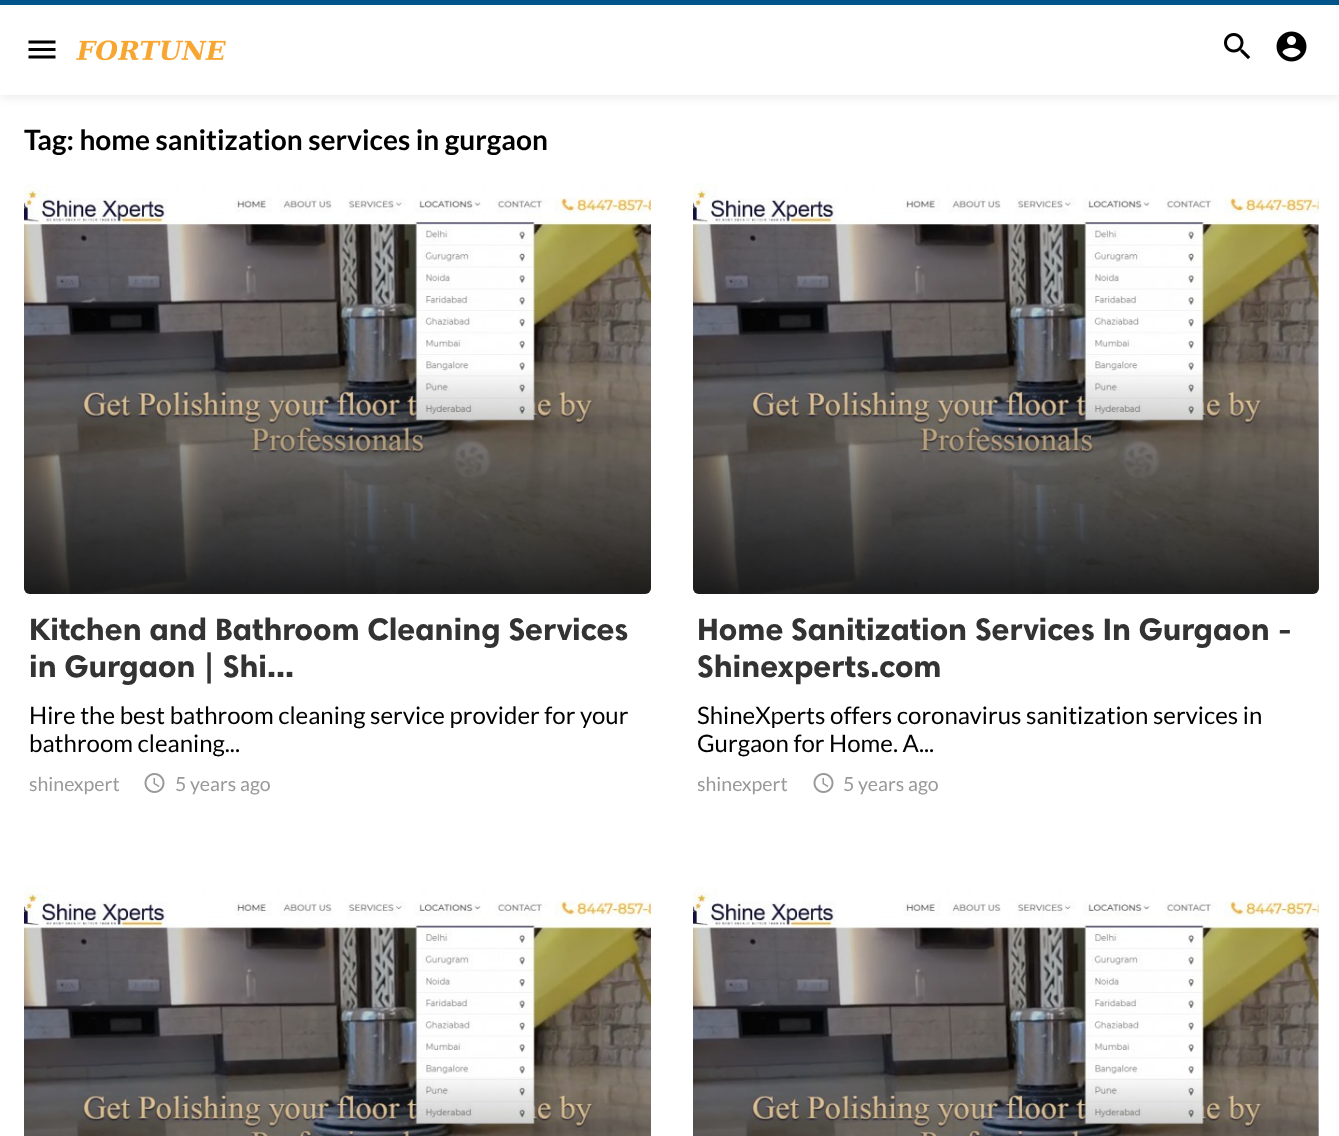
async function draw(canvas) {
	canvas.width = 1339;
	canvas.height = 1136;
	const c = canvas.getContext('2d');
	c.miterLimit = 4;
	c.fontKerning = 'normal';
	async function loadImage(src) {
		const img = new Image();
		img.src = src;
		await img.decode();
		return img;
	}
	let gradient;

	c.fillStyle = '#fff';
	c.fillRect(0, 0, 1339, 1136);
	c.fillStyle = '#0000001a';
	c.filter = 'blur(6px)';
	c.beginPath();
	c.rect(0, 2, 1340, 94);
	c.fill();
	c.filter = 'none';
	c.fillStyle = '#fff';
	c.fillRect(0, 5, 1339, 90);
	c.fillStyle = '#00558a';
	c.fillRect(0, 0, 1339, 5);
	c.drawImage(await loadImage('img1.png'), 28, 40, 28, 19);
	c.drawImage(await loadImage('img2.png'), 75, 40, 151, 21);
	c.drawImage(await loadImage('img3.png'), 1224, 33, 27, 27);
	c.drawImage(await loadImage('img4.png'), 1276, 31, 31, 31);
	c.font = 'bold 28.1px Lato';
	c.fillStyle = '#000';
	c.fillText('Tag: home sanitization services in gurgaon', 24, 150);
	c.drawImage(await loadImage('img5.png'), 24, 183, 627, 411);
	gradient = c.createLinearGradient(337, 183, 338, 594);
	gradient.addColorStop(0.45, '#00000000');
	gradient.addColorStop(0.99, '#000000cc');
	gradient.addColorStop(1, '#000000cc');
	c.fillStyle = gradient;
	c.beginPath();
	c.roundRect(24, 183, 627, 411, 6);
	c.fill();
	c.font = 'bold 31.25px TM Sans';
	c.fillStyle = '#333';
	c.fillText('Kitchen and Bathroom Cleaning Services', 29, 640);
	c.fillText('in Gurgaon | Shi...', 29, 677);
	c.font = '24px Lato';
	c.fillStyle = '#000';
	c.fillText('Hire the best bathroom cleaning service provider for your', 29, 724);
	c.fillText('bathroom cleaning...', 29, 752);
	c.font = '19.5px Lato';
	c.fillStyle = '#999';
	c.fillText('shinexpert', 29, 791);
	c.drawImage(await loadImage('img6.png'), 144, 773, 21, 20);
	c.fillText('5 years ago', 175, 791);
	c.drawImage(await loadImage('img7.png'), 693, 183, 626, 411);
	gradient = c.createLinearGradient(1006, 183, 1006, 594);
	gradient.addColorStop(0.45, '#00000000');
	gradient.addColorStop(0.99, '#000000cc');
	gradient.addColorStop(1, '#000000cc');
	c.fillStyle = gradient;
	c.beginPath();
	c.roundRect(693, 183, 626, 411, 6);
	c.fill();
	c.font = 'bold 31.25px TM Sans';
	c.fillStyle = '#333';
	c.fillText('Home Sanitization Services In Gurgaon -', 697, 640);
	c.fillText('Shinexperts.com', 697, 677);
	c.font = '24px Lato';
	c.fillStyle = '#000';
	c.fillText('ShineXperts offers coronavirus sanitization services in', 697, 724);
	c.fillText('Gurgaon for Home. A...', 697, 752);
	c.save();
	c.beginPath();
	c.rect(698, 771, 616, 24);
	c.clip();
	c.font = '19.5px Lato';
	c.fillStyle = '#999';
	c.fillText('shinexpert', 697, 791);
	c.restore();
	c.drawImage(await loadImage('img6.png'), 813, 773, 21, 20);
	c.font = '19.5px Lato';
	c.fillStyle = '#999';
	c.fillText('5 years ago', 843, 791);
	c.drawImage(await loadImage('img8.png'), 24, 886, 627, 250);
	gradient = c.createLinearGradient(337, 887, 338, 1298);
	gradient.addColorStop(0.45, '#00000000');
	gradient.addColorStop(0.99, '#000000cc');
	gradient.addColorStop(1, '#000000cc');
	c.fillStyle = gradient;
	c.fillRect(24, 1077, 627, 59);
	c.drawImage(await loadImage('img9.png'), 693, 886, 626, 250);
	gradient = c.createLinearGradient(1006, 887, 1006, 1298);
	gradient.addColorStop(0.45, '#00000000');
	gradient.addColorStop(0.99, '#000000cc');
	gradient.addColorStop(1, '#000000cc');
	c.fillStyle = gradient;
	c.fillRect(693, 1078, 626, 58);
}

draw(document.querySelector('canvas'));
